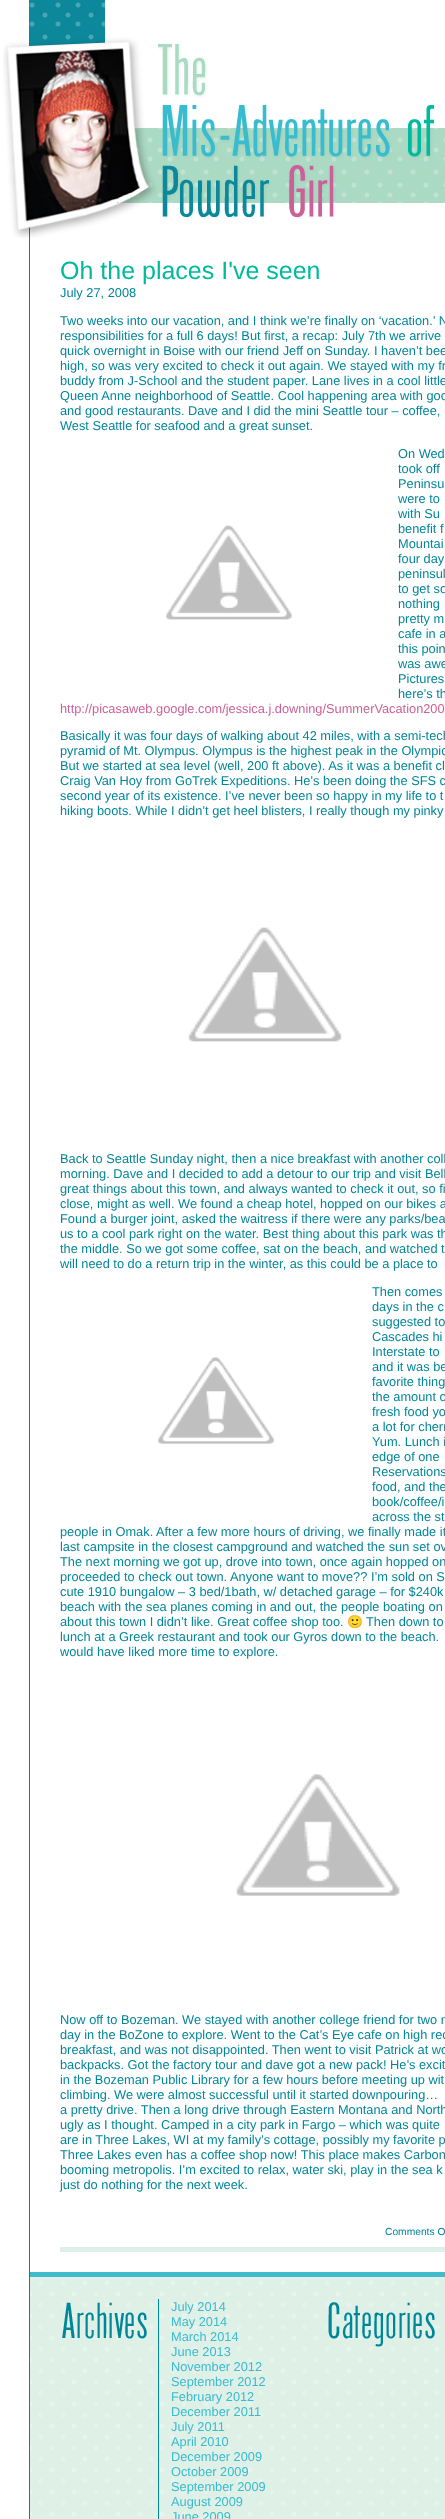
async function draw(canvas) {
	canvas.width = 445;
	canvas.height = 2519;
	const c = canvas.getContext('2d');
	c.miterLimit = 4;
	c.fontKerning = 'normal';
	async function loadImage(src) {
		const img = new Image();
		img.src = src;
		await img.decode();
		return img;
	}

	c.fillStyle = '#fff';
	c.fillRect(0, 0, 445, 2519);
	c.fillStyle = '#008699';
	c.fillRect(29, 238, 1, 2281);
	c.drawImage(await loadImage('img1.png'), 3, 0, 442, 238);
	c.fillStyle = '#dff0e7';
	c.fillRect(60, 2247, 385, 5);
	c.font = '25px Liberation Sans';
	c.fillStyle = '#00ba9d';
	c.fillText('Oh the places I\'ve seen', 60, 279);
	c.font = '12.8px Liberation Sans';
	c.fillStyle = '#038699';
	for (const [text, x, y] of [
		['July 27, 2008', 60, 297],
		['Two weeks into our vacation, and I think we’re finally on ‘vacation.’ N', 60, 325],
		['responsibilities for a full 6 days! But first, a recap: July 7th we arrive', 60, 340],
		['quick overnight in Boise with our friend Jeff on Sunday. I haven’t bee', 60, 355],
		['high, so was very excited to check it out again. We stayed with my fr', 60, 370],
		['buddy from J-School and the student paper. Lane lives in a cool little', 60, 385],
		['Queen Anne neighborhood of Seattle. Cool happening area with goo', 60, 400],
		['and good restaurants. Dave and I did the mini Seattle tour – coffee,', 60, 415],
		['West Seattle for seafood and a great sunset.', 60, 430],
		['On Wed', 398, 458],
		['took off', 398, 473],
		['Peninsu', 398, 488],
		['were to', 398, 503],
		['with Su', 398, 518],
		['benefit f', 398, 533],
		['Mountai', 398, 548],
		['four day', 398, 563],
		['peninsul', 398, 578],
		['to get so', 398, 593],
		['nothing', 398, 608],
		['pretty m', 398, 623],
		['cafe in a', 398, 638],
		['this poin', 398, 653],
		['was awe', 398, 668],
		['Pictures', 398, 683],
		['here’s th', 398, 698],
	]) {
		c.fillText(text, x, y);
	}
	c.fillStyle = '#cc6197';
	c.fillText('http://picasaweb.google.com/jessica.j.downing/SummerVacation200', 60, 713);
	c.drawImage(await loadImage('img2.png'), 166, 525, 126, 95);
	c.fillStyle = '#038699';
	for (const [text, x, y] of [
		['Basically it was four days of walking about 42 miles, with a semi-tech', 60, 740],
		['pyramid of Mt. Olympus. Olympus is the highest peak in the Olympic', 60, 755],
		['But we started at sea level (well, 200 ft above). As it was a benefit cl', 60, 770],
		['Craig Van Hoy from GoTrek Expeditions. He’s been doing the SFS c', 60, 785],
		['second year of its existence. I’ve never been so happy in my life to t', 60, 800],
		['hiking boots. While I didn’t get heel blisters, I really though my pinky', 60, 815],
	]) {
		c.fillText(text, x, y);
	}
	c.drawImage(await loadImage('img3.png'), 188, 927, 154, 115);
	for (const [text, x, y] of [
		['Back to Seattle Sunday night, then a nice breakfast with another coll', 60, 1163],
		['morning. Dave and I decided to add a detour to our trip and visit Bell', 60, 1178],
		['great things about this town, and always wanted to check it out, so fi', 60, 1193],
		['close, might as well. We found a cheap hotel, hopped on our bikes a', 60, 1208],
		['Found a burger joint, asked the waitress if there were any parks/bea', 60, 1223],
		['us to a cool park right on the water. Best thing about this park was th', 60, 1238],
		['the middle. So we got some coffee, sat on the beach, and watched t', 60, 1253],
		['will need to do a return trip in the winter, as this could be a place to', 60, 1268],
		['Then comes', 372, 1296],
		['days in the c', 372, 1311],
		['suggested to', 372, 1326],
		['Cascades hi', 372, 1341],
		['Interstate to', 372, 1356],
		['and it was be', 372, 1371],
		['favorite thing', 372, 1386],
		['the amount o', 372, 1401],
		['fresh food yo', 372, 1416],
		['a lot for cherr', 372, 1431],
		['Yum. Lunch i', 372, 1446],
		['edge of one', 372, 1461],
		['Reservations', 372, 1476],
		['food, and the', 372, 1491],
		['book/coffee/i', 372, 1506],
		['across the st', 372, 1521],
		['people in Omak.', 60, 1536],
		['After a few more hours of driving, we finally made it', 156, 1536],
		['last campsite in the closest campground and watched the sun set ov', 60, 1551],
		['The next morning we got up, drove into town, once again hopped on', 60, 1566],
		['proceeded to check out town. Anyone want to move?? I’m sold on S', 60, 1581],
		['cute 1910 bungalow – 3 bed/1bath, w/ detached garage – for $240k', 60, 1596],
		['beach with the sea planes coming in and out, the people boating on', 60, 1611],
		['about this town I didn’t like. Great coffee shop too.', 60, 1626],
	]) {
		c.fillText(text, x, y);
	}
	c.font = '12.8px Noto Color Emoji';
	c.fillText('🙂', 347, 1626);
	c.font = '12.8px Liberation Sans';
	for (const [text, x, y] of [
		['Then down to', 366, 1626],
		['lunch at a Greek restaurant and took our Gyros down to the beach.', 60, 1641],
		['would have liked more time to explore.', 60, 1656],
	]) {
		c.fillText(text, x, y);
	}
	c.drawImage(await loadImage('img4.png'), 158, 1357, 116, 87);
	c.drawImage(await loadImage('img5.png'), 236, 1774, 164, 122);
	for (const [text, x, y] of [
		['Now off to Bozeman. We stayed with another college friend for two n', 60, 2024],
		['day in the BoZone to explore. Went to the Cat’s Eye cafe on high rec', 60, 2039],
		['breakfast, and was not disappointed. Then went to visit Patrick at wo', 60, 2054],
		['backpacks. Got the factory tour and dave got a new pack! He’s excit', 60, 2069],
		['in the Bozeman Public Library for a few hours before meeting up wit', 60, 2084],
		['climbing. We were almost successful until it started downpouring…', 60, 2099],
		['a pretty drive. Then a long drive through Eastern Montana and North', 60, 2114],
		['ugly as I thought. Camped in a city park in Fargo – which was quite', 60, 2129],
		['are in Three Lakes, WI at my family’s cottage, possibly my favorite p', 60, 2144],
		['Three Lakes even has a coffee shop now! This place makes Carbon', 60, 2159],
		['booming metropolis. I’m excited to relax, water ski, play in the sea k', 60, 2174],
		['just do nothing for the next week.', 60, 2189],
	]) {
		c.fillText(text, x, y);
	}
	c.font = '10.25px Liberation Sans';
	c.fillText('Comments O', 385, 2235);
	c.drawImage(await loadImage('img6.png'), 30, 2277, 415, 242);
	c.fillStyle = '#3fbbcc';
	c.fillRect(30, 2272, 415, 5);
	c.drawImage(await loadImage('img7.png'), 62, 2302, 85, 37);
	c.fillStyle = '#008699';
	c.fillRect(158, 2299, 1, 220);
	c.font = '12.8px Liberation Sans';
	c.fillStyle = '#39bcce';
	for (const [text, x, y] of [
		['July 2014', 171, 2311],
		['May 2014', 171, 2326],
		['March 2014', 171, 2341],
		['June 2013', 171, 2356],
		['November 2012', 171, 2371],
		['September 2012', 171, 2386],
		['February 2012', 171, 2401],
		['December 2011', 171, 2416],
		['July 2011', 171, 2431],
		['April 2010', 171, 2446],
		['December 2009', 171, 2461],
		['October 2009', 171, 2476],
		['September 2009', 171, 2491],
		['August 2009', 171, 2506],
		['June 2009', 171, 2521],
	]) {
		c.fillText(text, x, y);
	}
	c.drawImage(await loadImage('img8.png'), 328, 2302, 107, 45);
}

draw(document.querySelector('canvas'));
